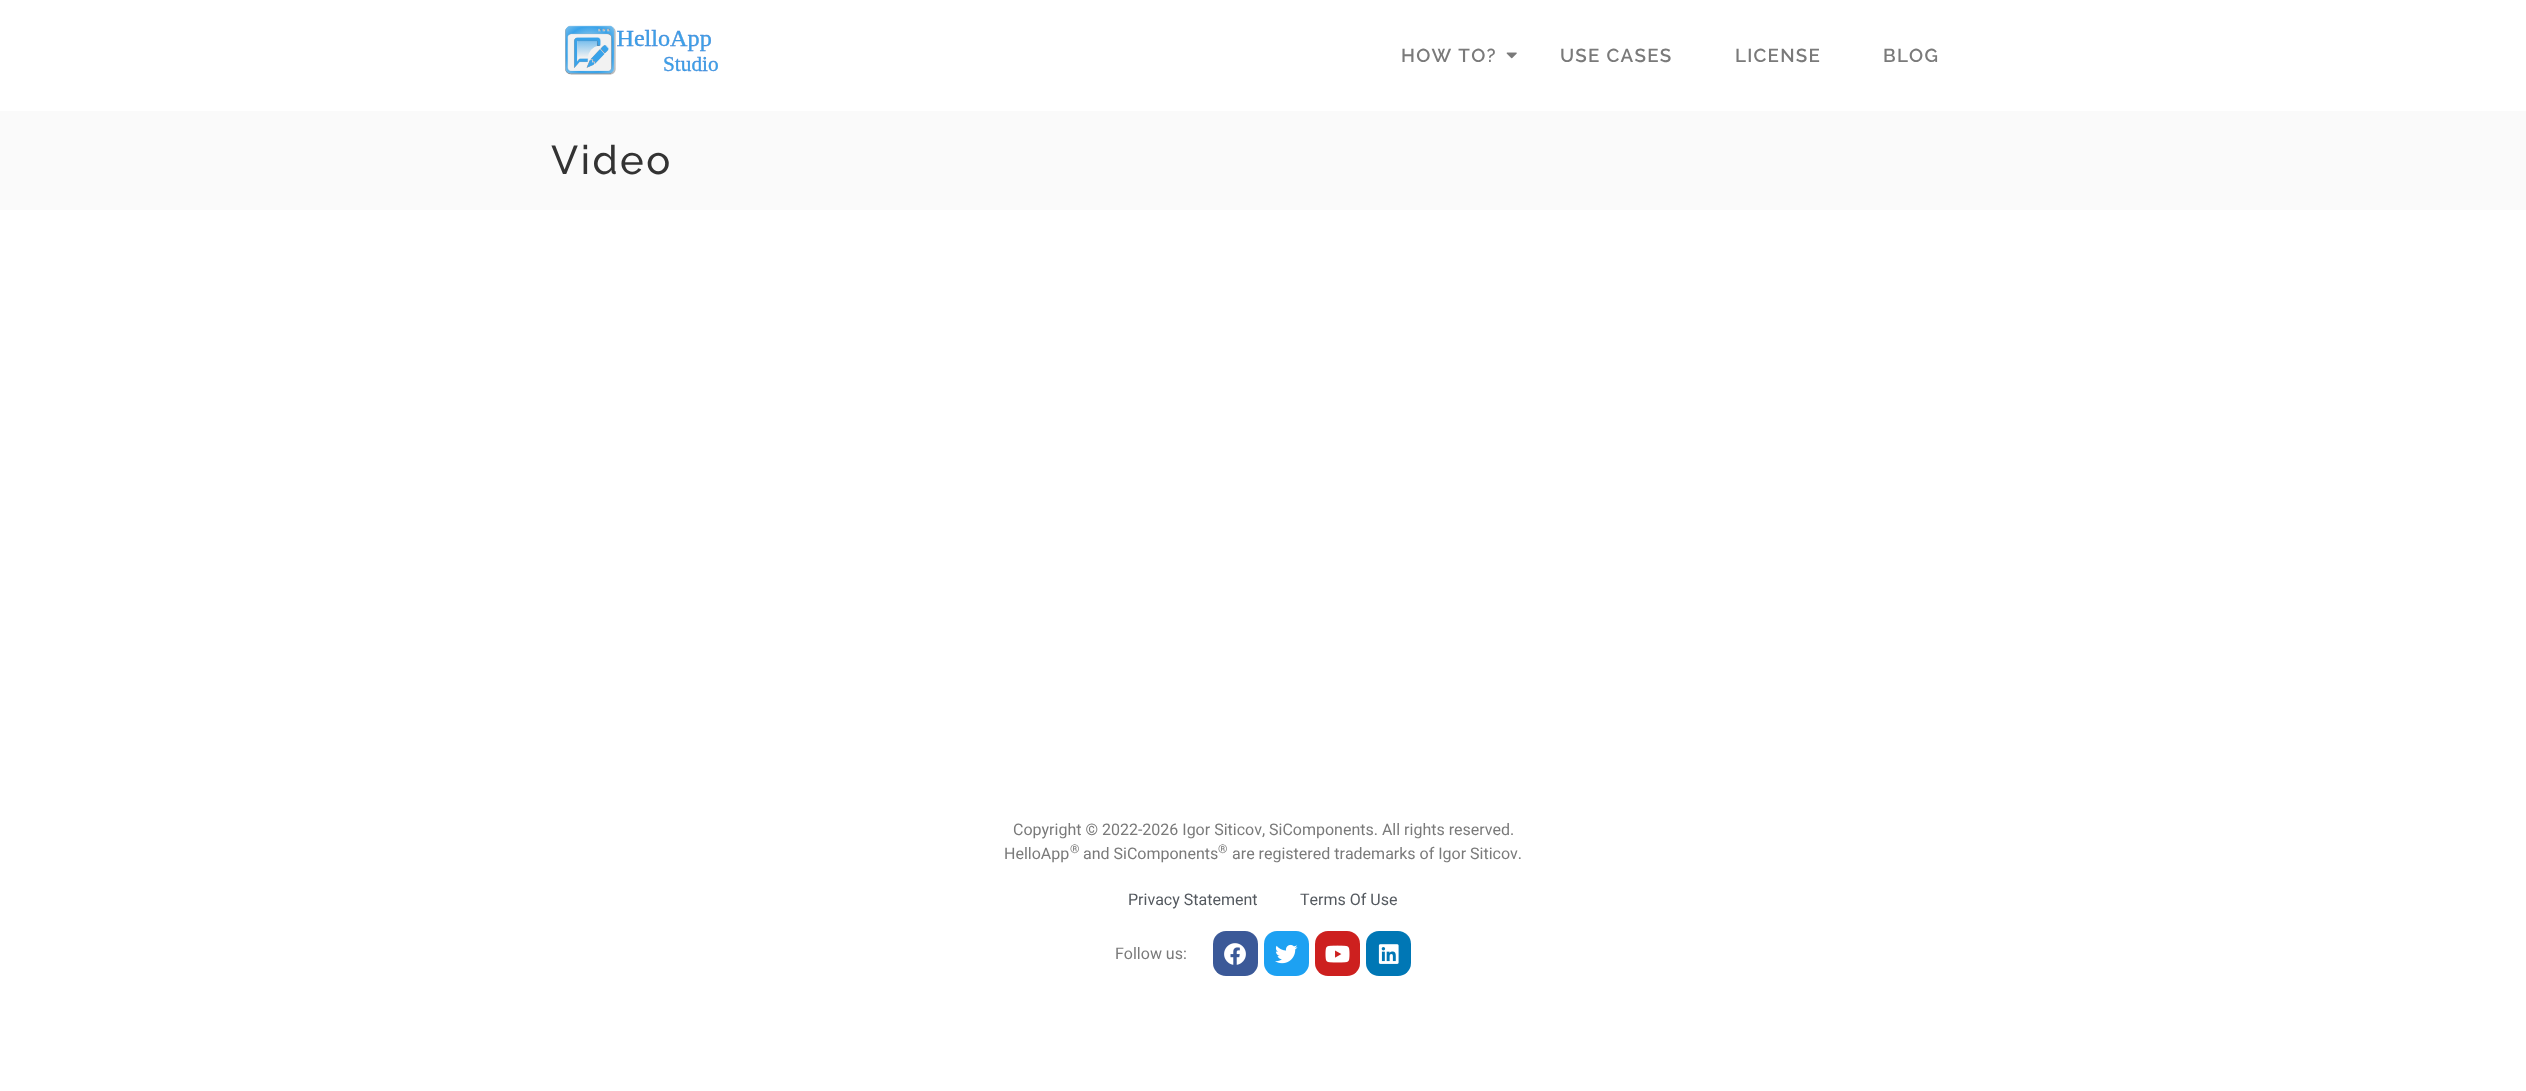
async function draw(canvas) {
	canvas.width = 2526;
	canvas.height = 1091;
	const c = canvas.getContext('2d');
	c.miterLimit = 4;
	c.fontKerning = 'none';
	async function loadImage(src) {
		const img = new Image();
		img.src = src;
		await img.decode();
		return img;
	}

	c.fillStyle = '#fff';
	c.fillRect(0, 0, 2526, 1091);
	c.drawImage(await loadImage('img1.png'), 565, 25, 153, 50);
	c.letterSpacing = '1.25px';
	c.font = '600 18.75px Raleway';
	c.fillStyle = '#7a7a7a';
	c.fillText('HOW TO?', 1401, 62);
	c.drawImage(await loadImage('img2.png'), 1506, 52, 11, 7);
	for (const [text, x, y] of [
		['USE CASES', 1560, 62],
		['LICENSE', 1735, 62],
		['BLOG', 1883, 62],
	]) {
		c.fillText(text, x, y);
	}
	c.fillStyle = '#fafafa';
	c.fillRect(0, 111, 2526, 99);
	c.letterSpacing = '2.5px';
	c.font = '500 40px Raleway';
	c.fillStyle = '#333';
	c.fillText('Video', 551, 174);
	c.letterSpacing = '0px';
	c.font = '16px Roboto';
	c.fillStyle = '#7a7a7a';
	c.fillText('Copyright © 2022-2026 Igor Siticov, SiComponents. All rights reserved.', 1013, 835);
	c.fillText('HelloApp', 1004, 859);
	c.font = '12px Roboto';
	c.fillText('®', 1070, 853);
	c.font = '16px Roboto';
	c.fillText('and SiComponents', 1083, 859);
	c.font = '12px Roboto';
	c.fillText('®', 1218, 853);
	c.font = '16px Roboto';
	c.fillText('are registered trademarks of Igor Siticov.', 1232, 859);
	c.fillStyle = '#54595f';
	c.fillText('Privacy Statement', 1128, 905);
	c.fillText('Terms Of Use', 1300, 905);
	c.fillStyle = '#7a7a7a';
	c.fillText('Follow us:', 1115, 959);
	c.fillStyle = '#3b5998';
	c.beginPath();
	c.roundRect(1213, 931, 45, 45, 13);
	c.fill();
	c.drawImage(await loadImage('img3.png'), 1224, 943, 22, 22);
	c.fillStyle = '#1da1f2';
	c.beginPath();
	c.roundRect(1264, 931, 45, 45, 13);
	c.fill();
	c.drawImage(await loadImage('img4.png'), 1275, 944, 23, 20);
	c.fillStyle = '#cd201f';
	c.beginPath();
	c.roundRect(1315, 931, 45, 45, 13);
	c.fill();
	c.drawImage(await loadImage('img5.png'), 1325, 945, 25, 18);
	c.fillStyle = '#0077b5';
	c.beginPath();
	c.roundRect(1366, 931, 45, 45, 13);
	c.fill();
	c.drawImage(await loadImage('img6.png'), 1378, 944, 21, 20);
}

draw(document.querySelector('canvas'));
